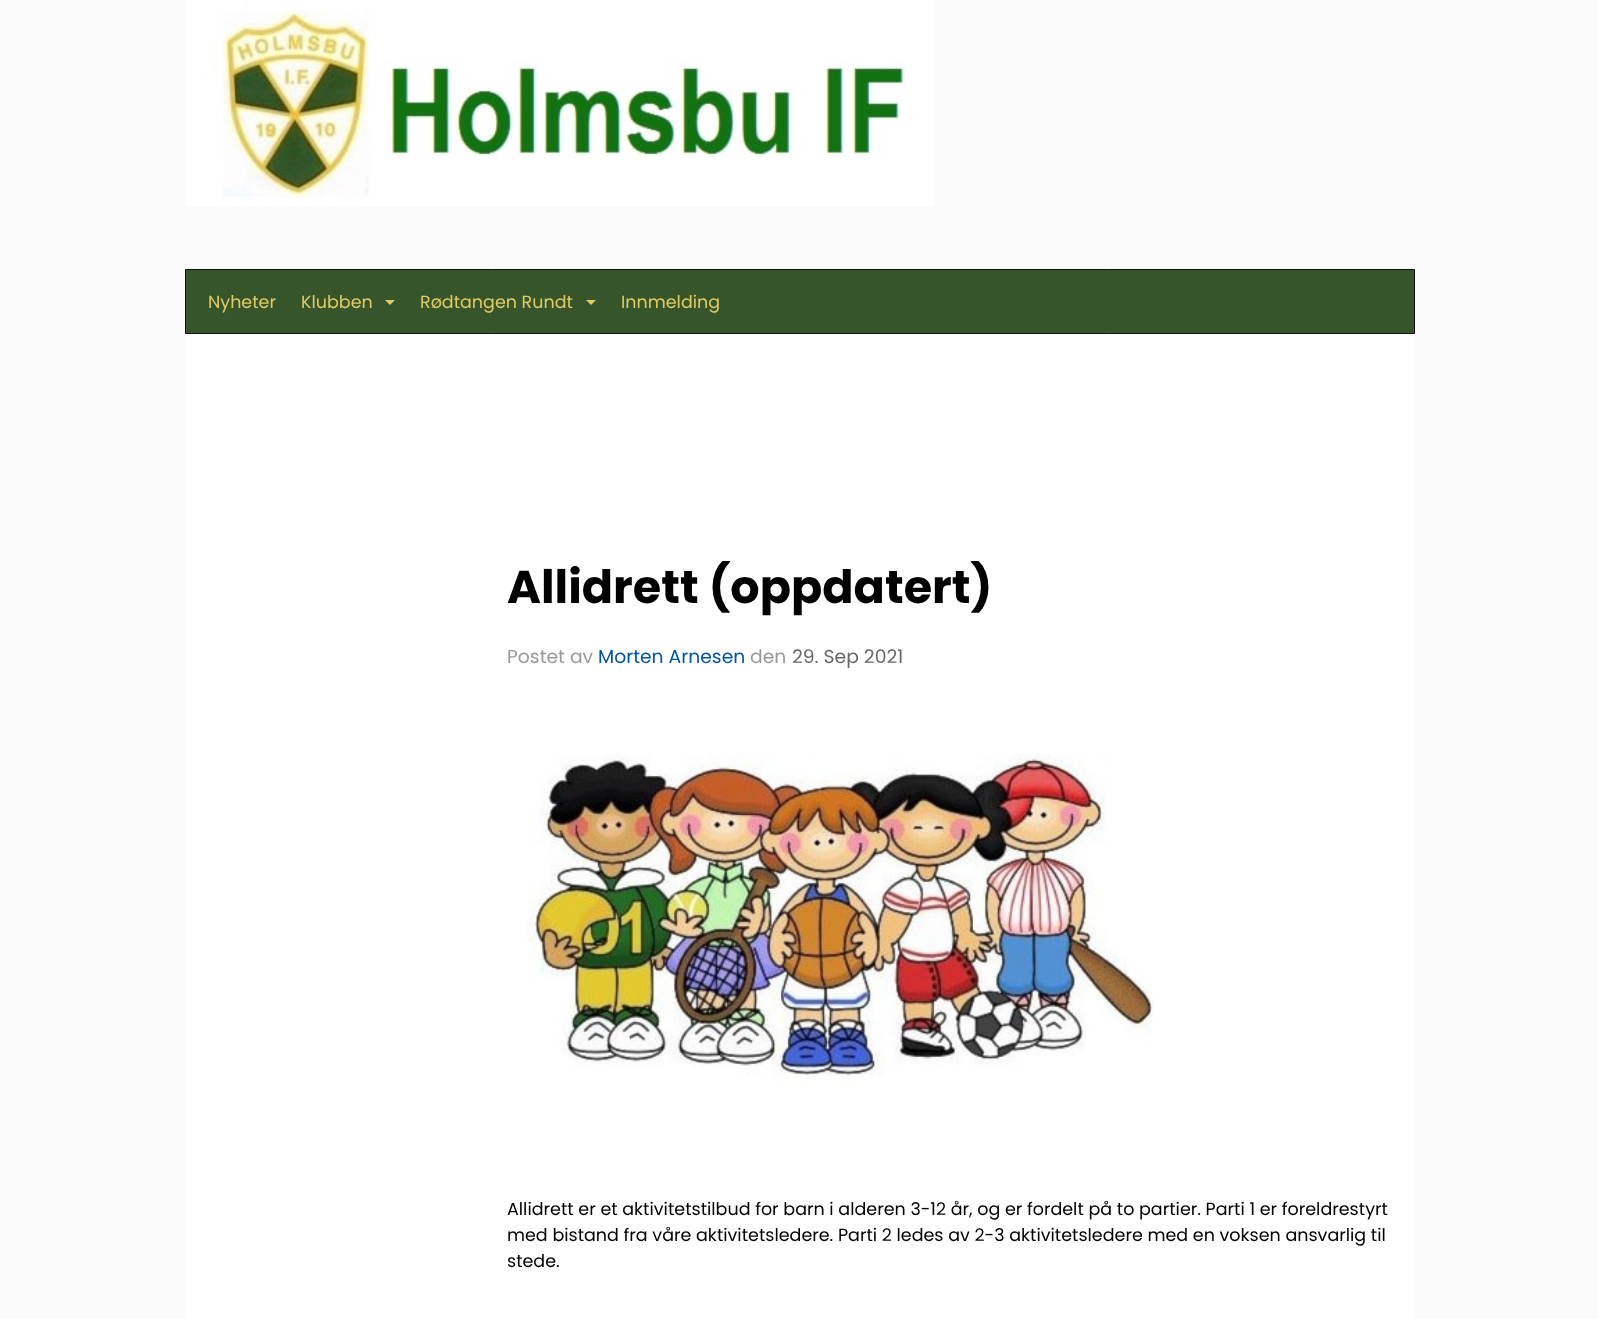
async function draw(canvas) {
	canvas.width = 1598;
	canvas.height = 1319;
	const c = canvas.getContext('2d');
	c.miterLimit = 4;
	c.fontKerning = 'normal';
	async function loadImage(src) {
		const img = new Image();
		img.src = src;
		await img.decode();
		return img;
	}

	c.fillStyle = '#fafafa';
	c.fillRect(0, 0, 1598, 1319);
	c.drawImage(await loadImage('img1.png'), 185, 0, 750, 206);
	c.fillStyle = '#36552b';
	c.beginPath();
	c.rect(185.5, 269.5, 1229, 64);
	c.fill();
	c.strokeStyle = '#101010';
	c.stroke();
	c.font = '17.5px Poppins';
	c.fillStyle = '#e2c962';
	c.fillText('Nyheter', 208, 308);
	c.fillText('Klubben', 301, 308);
	c.beginPath();
	c.moveTo(385, 300);
	c.lineTo(395, 300);
	c.lineTo(390, 305);
	c.closePath();
	c.fill();
	c.fillText('Rødtangen Rundt', 420, 308);
	c.beginPath();
	c.moveTo(586, 300);
	c.lineTo(596, 300);
	c.lineTo(591, 305);
	c.closePath();
	c.fill();
	c.fillText('Innmelding', 621, 308);
	c.fillStyle = '#fff';
	c.fillRect(185, 334, 1230, 985);
	c.font = 'bold 46.1px Poppins';
	c.fillStyle = '#000';
	c.fillText('Allidrett (oppdatert)', 507, 603);
	c.font = '18.75px Poppins';
	c.fillStyle = '#999';
	c.fillText('Postet av', 507, 663);
	c.fillStyle = '#0054a6';
	c.fillText('Morten Arnesen', 598, 663);
	c.fillStyle = '#999';
	c.fillText('den', 750, 663);
	c.fillStyle = '#666';
	c.fillText('29. Sep 2021', 792, 663);
	c.drawImage(await loadImage('img2.png'), 527, 753, 627, 332);
	c.font = '17.5px Poppins';
	c.fillStyle = '#000';
	for (const [text, x, y] of [
		['Allidrett er et aktivitetstilbud for barn i alderen 3-12 år, og er fordelt på to partier. Parti 1 er foreldrestyrt', 507, 1215],
		['med bistand fra våre aktivitetsledere. Parti 2 ledes av 2-3 aktivitetsledere med en voksen ansvarlig til', 507, 1241],
		['stede.', 507, 1267],
	]) {
		c.fillText(text, x, y);
	}
}

draw(document.querySelector('canvas'));
